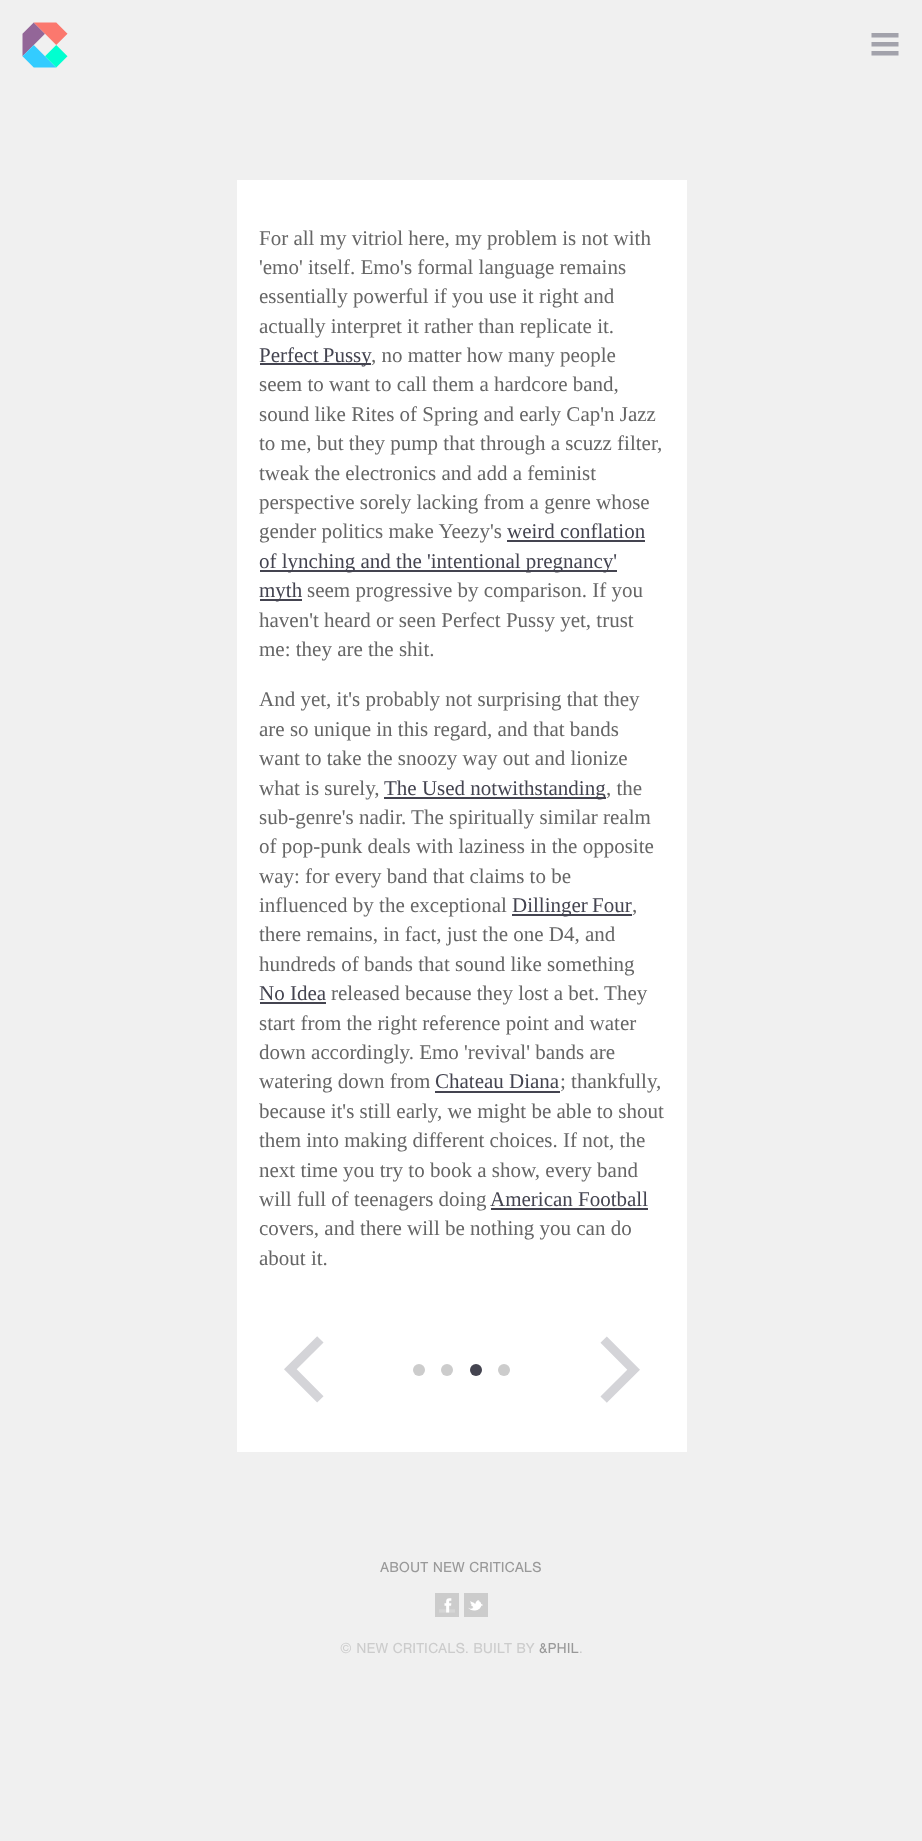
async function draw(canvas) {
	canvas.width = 922;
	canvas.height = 1841;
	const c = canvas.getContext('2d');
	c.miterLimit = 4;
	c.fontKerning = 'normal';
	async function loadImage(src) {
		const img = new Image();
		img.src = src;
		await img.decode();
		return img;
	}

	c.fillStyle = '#f0f0f0';
	c.fillRect(0, 0, 922, 1841);
	c.drawImage(await loadImage('img1.png'), 22, 22, 46, 46);
	c.drawImage(await loadImage('img2.png'), 871, 33, 28, 23);
	c.fillStyle = '#fff';
	c.fillRect(237, 180, 450, 1272);
	c.font = '21px Liberation Serif';
	c.fillStyle = '#666';
	for (const [text, x, y] of [
		['For all my vitriol here, my problem is not with', 259, 245],
		['\'emo\' itself. Emo\'s formal language remains', 259, 274],
		['essentially powerful if you use it right and', 259, 303],
		['actually interpret it rather than replicate it.', 259, 333],
	]) {
		c.fillText(text, x, y);
	}
	c.fillStyle = '#444450';
	c.fillRect(260, 363, 111, 2);
	c.wordSpacing = '-1px';
	c.fillText('Perfect Pussy', 259, 362);
	c.wordSpacing = '0px';
	c.fillStyle = '#666';
	for (const [text, x, y] of [
		[', no matter how many people', 371, 362],
		['seem to want to call them a hardcore band,', 259, 391],
		['sound like Rites of Spring and early Cap\'n Jazz', 259, 421],
		['to me, but they pump that through a scuzz filter,', 259, 450],
		['tweak the electronics and add a feminist', 259, 480],
		['perspective sorely lacking from a genre whose', 259, 509],
		['gender politics make Yeezy\'s', 259, 538],
	]) {
		c.fillText(text, x, y);
	}
	c.fillStyle = '#444450';
	c.fillText('weird conflation', 507, 538);
	c.fillRect(507, 540, 138, 2);
	c.fillRect(260, 570, 357, 2);
	c.fillText('of lynching and the \'intentional pregnancy\'', 259, 568);
	c.fillRect(260, 599, 42, 2);
	c.fillText('myth', 259, 597);
	c.fillStyle = '#666';
	for (const [text, x, y] of [
		['seem progressive by comparison. If you', 307, 597],
		['haven\'t heard or seen Perfect Pussy yet, trust', 259, 627],
		['me: they are the shit.', 259, 656],
		['And yet, it\'s probably not surprising that they', 259, 706],
		['are so unique in this regard, and that bands', 259, 736],
		['want to take the snoozy way out and lionize', 259, 765],
		['what is surely,', 259, 795],
	]) {
		c.fillText(text, x, y);
	}
	c.fillStyle = '#444450';
	c.fillRect(384, 797, 222, 2);
	c.fillText('The Used notwithstanding', 384, 795);
	c.fillStyle = '#666';
	for (const [text, x, y] of [
		[', the', 606, 795],
		['sub-genre\'s nadir. The spiritually similar realm', 259, 824],
		['of pop-punk deals with laziness in the opposite', 259, 853],
		['way: for every band that claims to be', 259, 883],
		['influenced by the exceptional', 259, 912],
	]) {
		c.fillText(text, x, y);
	}
	c.fillStyle = '#444450';
	c.fillRect(512, 914, 120, 2);
	c.wordSpacing = '-1px';
	c.fillText('Dillinger Four', 512, 912);
	c.wordSpacing = '0px';
	c.fillStyle = '#666';
	for (const [text, x, y] of [
		[',', 632, 912],
		['there remains, in fact, just the one D4, and', 259, 941],
		['hundreds of bands that sound like something', 259, 971],
	]) {
		c.fillText(text, x, y);
	}
	c.fillStyle = '#444450';
	c.fillText('No Idea', 259, 1000);
	c.fillRect(260, 1002, 66, 2);
	c.fillStyle = '#666';
	for (const [text, x, y] of [
		['released because they lost a bet. They', 331, 1000],
		['start from the right reference point and water', 259, 1030],
		['down accordingly. Emo \'revival\' bands are', 259, 1059],
		['watering down from', 259, 1088],
	]) {
		c.fillText(text, x, y);
	}
	c.fillStyle = '#444450';
	c.fillText('Chateau Diana', 435, 1088);
	c.fillRect(435, 1091, 125, 2);
	c.fillStyle = '#666';
	for (const [text, x, y] of [
		['; thankfully,', 560, 1088],
		['because it\'s still early, we might be able to shout', 259, 1118],
		['them into making different choices. If not, the', 259, 1147],
		['next time you try to book a show, every band', 259, 1177],
		['will full of teenagers doing', 259, 1206],
	]) {
		c.fillText(text, x, y);
	}
	c.fillStyle = '#444450';
	c.fillText('American Football', 490, 1206);
	c.fillRect(491, 1208, 157, 2);
	c.fillStyle = '#666';
	c.fillText('covers, and there will be nothing you can do', 259, 1235);
	c.fillText('about it.', 259, 1265);
	c.drawImage(await loadImage('img3.png'), 284, 1336, 40, 67);
	c.fillStyle = '#ccc';
	c.beginPath();
	c.arc(419, 1370, 6, 0, 2 * Math.PI);
	c.fill();
	c.beginPath();
	c.arc(447, 1370, 6, 0, 2 * Math.PI);
	c.fill();
	c.fillStyle = '#444450';
	c.beginPath();
	c.arc(476, 1370, 6, 0, 2 * Math.PI);
	c.fill();
	c.fillStyle = '#ccc';
	c.beginPath();
	c.arc(504, 1370, 6, 0, 2 * Math.PI);
	c.fill();
	c.drawImage(await loadImage('img4.png'), 600, 1336, 40, 67);
	c.font = '15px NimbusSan';
	c.fillStyle = '#999';
	c.fillText('ABOUT NEW CRITICALS', 380, 1572);
	c.fillStyle = '#ccc';
	c.fillRect(435, 1593, 24, 24);
	c.drawImage(await loadImage('img5.png'), 439, 1598, 16, 15);
	c.fillRect(464, 1593, 24, 24);
	c.drawImage(await loadImage('img6.png'), 468, 1600, 15, 11);
	c.fillText('© NEW CRITICALS. BUILT BY', 340, 1653);
	c.fillStyle = '#999';
	c.fillText('&PHIL', 539, 1653);
	c.fillStyle = '#ccc';
	c.fillText('.', 579, 1653);
}

draw(document.querySelector('canvas'));
